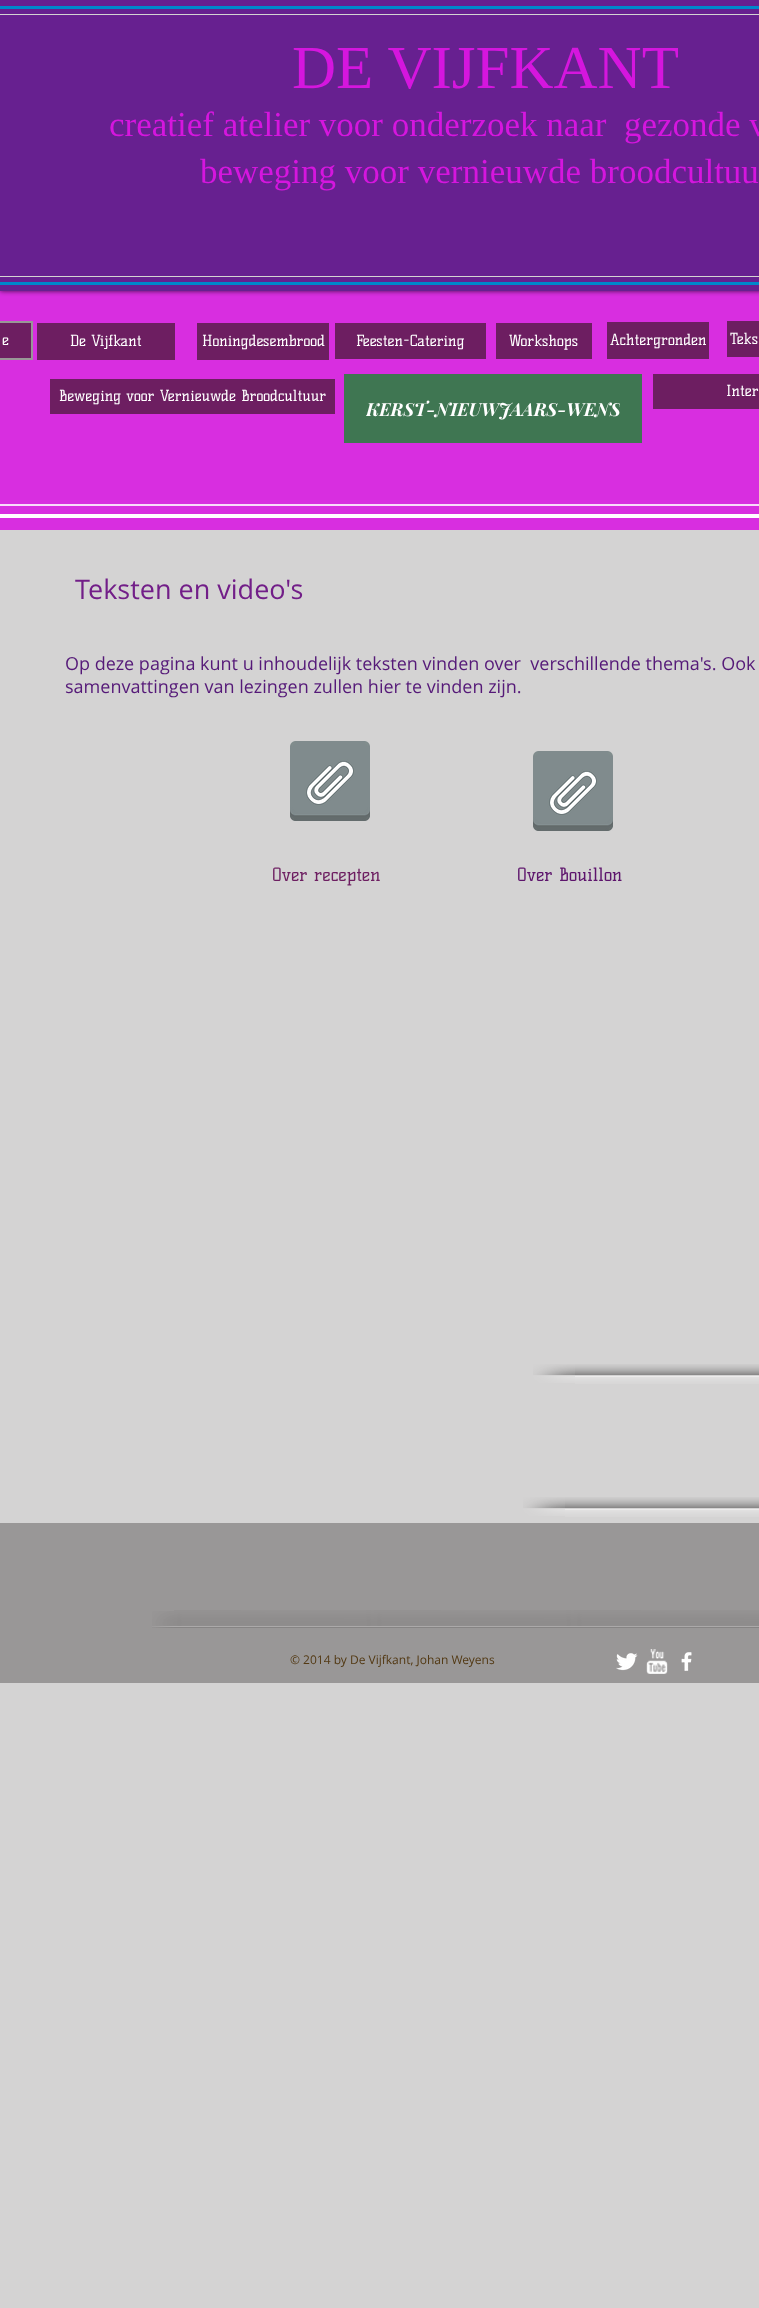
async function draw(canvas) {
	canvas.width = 759;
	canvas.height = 2308;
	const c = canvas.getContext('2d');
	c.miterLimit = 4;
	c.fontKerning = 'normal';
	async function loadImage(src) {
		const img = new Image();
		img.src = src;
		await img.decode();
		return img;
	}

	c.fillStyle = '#d4d3d3';
	c.fillRect(0, 0, 759, 2308);
	c.fillStyle = '#d82ee0';
	c.fillRect(0, 291, 759, 239);
	c.fillStyle = '#000000b3';
	c.filter = 'blur(2.5px)';
	c.beginPath();
	c.rect(0, 0, 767, 291);
	c.fill();
	c.filter = 'none';
	for (const [x, y, w, h, color] of [
		[0, 0, 759, 291, '#672090'],
		[0, 6, 759, 3, '#0088cb'],
		[0, 282, 759, 3, '#0088cb'],
		[0, 14, 759, 1, '#d4d3d3'],
		[0, 276, 759, 1, '#d4d3d3'],
	]) {
		c.fillStyle = color;
		c.fillRect(x, y, w, h);
	}
	c.font = '61px Liberation Serif';
	c.fillStyle = '#d516de';
	c.fillText('DE VIJFKANT', 292, 88);
	c.font = '35px Liberation Serif';
	c.fillText('creatief atelier voor onderzoek naar  gezonde v', 109, 136);
	c.fillText('beweging voor vernieuwde broodcultuu', 200, 183);
	c.fillStyle = '#6d1e61';
	c.beginPath();
	c.rect(-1, 322, 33, 37);
	c.fill();
	c.strokeStyle = '#999797';
	c.lineWidth = 2;
	c.stroke();
	c.font = '15px Kelly Slab';
	c.fillStyle = '#fff';
	c.fillText('e', 2, 345);
	c.fillStyle = '#6d1e61';
	c.fillRect(37, 323, 138, 37);
	c.fillStyle = '#fff';
	c.fillText('De Vijfkant', 70, 346);
	c.fillStyle = '#6d1e61';
	c.fillRect(197, 323, 132, 37);
	c.fillStyle = '#fff';
	c.fillText('Honingdesembrood', 202, 346);
	c.fillStyle = '#6d1e61';
	c.fillRect(335, 323, 151, 36);
	c.fillStyle = '#fff';
	c.fillText('Feesten-Catering', 356, 346);
	c.fillStyle = '#6d1e61';
	c.fillRect(496, 323, 96, 36);
	c.fillStyle = '#fff';
	c.fillText('Workshops', 509, 346);
	c.fillStyle = '#6d1e61';
	c.fillRect(607, 322, 102, 37);
	c.fillStyle = '#fff';
	c.fillText('Achtergronden', 610, 345);
	c.fillStyle = '#6d1e61';
	c.fillRect(727, 321, 32, 36);
	c.fillStyle = '#fff';
	c.fillText('Teks', 730, 344);
	c.fillStyle = '#6d1e61';
	c.fillRect(50, 379, 285, 35);
	c.fillStyle = '#fff';
	c.fillText('Beweging voor Vernieuwde Broodcultuur', 59, 401);
	c.fillStyle = '#6d1e61';
	c.fillRect(653, 374, 106, 35);
	c.fillStyle = '#fff';
	c.fillText('Inter', 726, 396);
	c.fillStyle = '#3f7652';
	c.fillRect(344, 374, 298, 69);
	c.save();
	c.beginPath();
	c.rect(366, 397, 254, 24);
	c.clip();
	c.font = 'italic bold 18px Playfair Display';
	c.fillStyle = '#fff';
	c.fillText('KERST-NIEUWJAARS-WENS', 366, 416);
	c.restore();
	c.fillStyle = '#fff';
	c.fillRect(0, 514, 759, 4);
	c.fillStyle = '#f8dbfa';
	c.fillRect(0, 504, 759, 2);
	c.font = '27px Open Sans';
	c.fillStyle = '#721e88';
	c.fillText('Teksten en video\'s', 75, 599);
	c.font = '18px Open Sans';
	c.fillStyle = '#551978';
	c.fillText('Op deze pagina kunt u inhoudelijk teksten vinden over  verschillende thema\'s. Ook', 65, 670);
	c.fillText('samenvattingen van lezingen zullen hier te vinden zijn.', 65, 693);
	c.drawImage(await loadImage('img1.png'), 290, 741, 80, 80);
	c.drawImage(await loadImage('img1.png'), 533, 751, 80, 80);
	c.font = '18px Kelly Slab';
	c.fillStyle = '#6d1e61';
	c.fillText('Over recepten', 272, 881);
	c.fillStyle = '#5d146c';
	c.fillText('Over Bouillon', 517, 881);
	c.drawImage(await loadImage('img2.png'), 575, 1364, 184, 20);
	c.drawImage(await loadImage('img3.png'), 533, 1364, 42, 19);
	c.drawImage(await loadImage('img4.png'), 565, 1497, 194, 20);
	c.drawImage(await loadImage('img3.png'), 523, 1497, 42, 19);
	c.fillStyle = '#999797';
	c.fillRect(0, 1523, 759, 160);
	c.drawImage(await loadImage('img5.png'), 152, 1611, 22, 17);
	c.drawImage(await loadImage('img6.png'), 174, 1610, 585, 18);
	c.font = '12px Open Sans';
	c.fillStyle = '#533913';
	c.fillText('© 2014 by De Vijfkant, Johan Weyens', 290, 1664);
	c.drawImage(await loadImage('img7.png'), 616, 1653, 22, 18);
	c.drawImage(await loadImage('img8.png'), 646, 1649, 22, 25);
	c.drawImage(await loadImage('img9.png'), 681, 1652, 11, 19);
}

draw(document.querySelector('canvas'));
